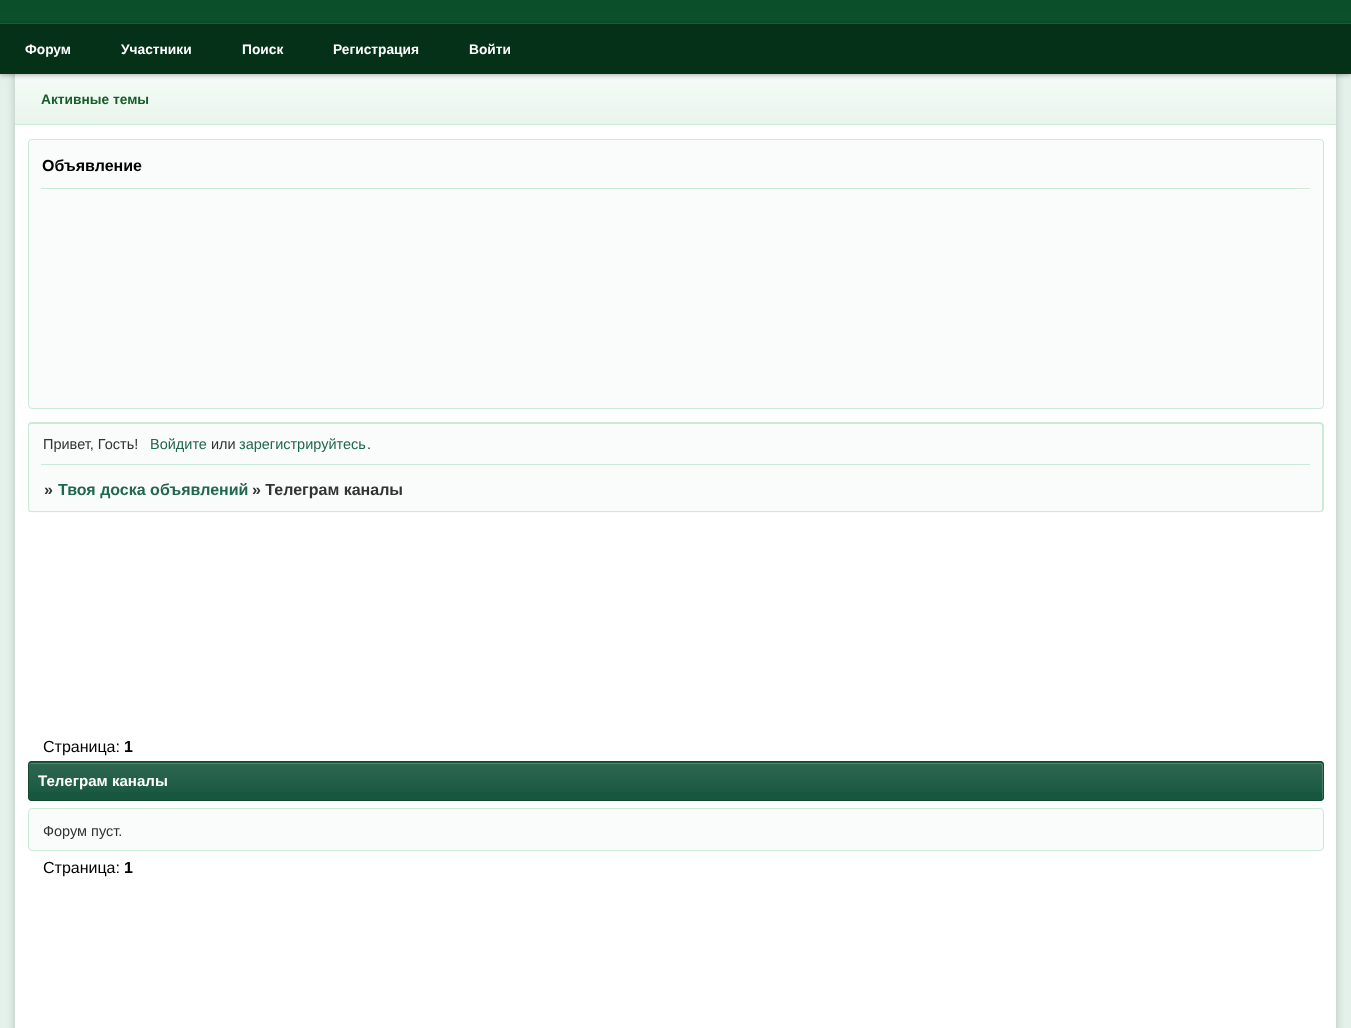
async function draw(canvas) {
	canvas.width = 1351;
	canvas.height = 1028;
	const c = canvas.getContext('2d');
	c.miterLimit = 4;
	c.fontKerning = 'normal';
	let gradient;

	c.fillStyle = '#e4f0ea';
	c.fillRect(0, 0, 1351, 1028);
	c.fillStyle = '#00000033';
	c.filter = 'blur(4px)';
	c.beginPath();
	c.roundRect(15, -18, 1321, 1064, 6);
	c.fill();
	c.filter = 'none';
	c.fillStyle = '#fff';
	c.fillRect(15, 125, 1321, 903);
	gradient = c.createLinearGradient(676, -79, 676, 74);
	gradient.addColorStop(0, '#094222');
	gradient.addColorStop(0.7, '#0b522b');
	c.fillStyle = gradient;
	c.fillRect(0, 0, 1351, 74);
	gradient = c.createLinearGradient(676, 74, 676, 124);
	gradient.addColorStop(0, '#f6fbf7');
	gradient.addColorStop(1, '#e8f5ec');
	c.fillStyle = gradient;
	c.fillRect(15, 74, 1321, 50);
	c.save();
	c.beginPath();
	c.moveTo(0, 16);
	c.lineTo(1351, 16);
	c.lineTo(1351, 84);
	c.lineTo(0, 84);
	c.closePath();
	c.moveTo(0, 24);
	c.lineTo(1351, 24);
	c.lineTo(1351, 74);
	c.lineTo(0, 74);
	c.closePath();
	c.clip('evenodd');
	c.fillStyle = '#0000004d';
	c.filter = 'blur(2.5px)';
	c.beginPath();
	c.rect(0, 25, 1351, 50);
	c.fill();
	c.filter = 'none';
	c.restore();
	c.fillStyle = '#1e5a3a';
	c.fillRect(0, 23, 1351, 1);
	c.fillStyle = '#00000066';
	c.fillRect(0, 24, 1351, 50);
	c.font = 'bold 13.75px Liberation Sans';
	c.fillStyle = '#fff';
	for (const [text, x, y] of [
		['Форум', 25, 54],
		['Участники', 121, 54],
		['Поиск', 242, 54],
		['Регистрация', 333, 54],
		['Войти', 469, 54],
	]) {
		c.fillText(text, x, y);
	}
	c.fillStyle = '#c9ebd3';
	c.fillRect(15, 124, 1321, 1);
	c.fillStyle = '#195c2b';
	c.fillText('Активные темы', 41, 104);
	c.fillStyle = '#fafcfb';
	c.beginPath();
	c.roundRect(28.5, 139.5, 1295, 269, 3.5);
	c.fill();
	c.strokeStyle = '#c9ebd8';
	c.stroke();
	c.fillStyle = '#fff';
	c.fillRect(41, 189, 1269, 1);
	c.fillStyle = '#c9ebd5';
	c.fillRect(41, 188, 1269, 1);
	c.font = 'bold 16px Liberation Sans';
	c.fillStyle = '#000';
	c.fillText('Объявление', 42, 171);
	c.fillStyle = '#fafcfb';
	c.beginPath();
	c.roundRect(28, 423, 1296, 43, [4, 4, 0, 0]);
	c.fill();
	c.fillStyle = '#c9ebd8';
	c.beginPath();
	c.moveTo(31, 422);
	c.lineTo(1320, 422);
	c.bezierCurveTo(1322, 422, 1324, 424, 1324, 426);
	c.lineTo(1324, 466);
	c.lineTo(28, 466);
	c.lineTo(28, 426);
	c.bezierCurveTo(28, 424, 29, 422, 31, 422);
	c.closePath();
	c.moveTo(31, 424);
	c.lineTo(1320, 424);
	c.bezierCurveTo(1321, 424, 1322, 425, 1322, 426);
	c.lineTo(1322, 466);
	c.lineTo(29, 466);
	c.lineTo(29, 426);
	c.bezierCurveTo(29, 425, 30, 424, 31, 424);
	c.closePath();
	c.fill('evenodd');
	c.font = '14.5px Liberation Sans';
	c.fillStyle = '#333';
	c.fillText('Привет, Гость!', 43, 449);
	c.fillStyle = '#206750';
	c.fillText('Войдите', 150, 449);
	c.fillStyle = '#333';
	c.fillText('или', 211, 449);
	c.fillStyle = '#206750';
	c.fillText('зарегистрируйтесь', 239, 449);
	c.fillStyle = '#333';
	c.fillText('.', 367, 449);
	c.fillStyle = '#fafcfb';
	c.beginPath();
	c.roundRect(28, 464, 1296, 49, [0, 0, 4, 4]);
	c.fill();
	c.fillStyle = '#c9ebd8';
	c.beginPath();
	c.moveTo(28, 464);
	c.lineTo(1324, 464);
	c.lineTo(1324, 509);
	c.bezierCurveTo(1324, 511, 1322, 512, 1320, 512);
	c.lineTo(31, 512);
	c.bezierCurveTo(29, 512, 28, 511, 28, 509);
	c.closePath();
	c.moveTo(29, 464);
	c.lineTo(1322, 464);
	c.lineTo(1322, 509);
	c.bezierCurveTo(1322, 510, 1321, 511, 1320, 511);
	c.lineTo(31, 511);
	c.bezierCurveTo(30, 511, 29, 510, 29, 509);
	c.closePath();
	c.fill('evenodd');
	c.fillStyle = '#c9ebda';
	c.fillRect(41, 464, 1269, 1);
	c.font = 'bold 16px Liberation Sans';
	c.fillStyle = '#333';
	c.fillText('»', 44, 495);
	c.fillStyle = '#206750';
	c.fillText('Твоя доска объявлений', 58, 495);
	c.fillStyle = '#333';
	c.fillText('» Телеграм каналы', 252, 495);
	c.font = '16px Liberation Sans';
	c.fillStyle = '#000';
	c.fillText('Страница:', 43, 752);
	c.font = 'bold 16px Liberation Sans';
	c.fillText('1', 124, 752);
	c.fillStyle = '#17563f';
	c.beginPath();
	c.roundRect(28, 761, 1296, 40, 4);
	c.fill();
	gradient = c.createLinearGradient(676, 762, 676, 800);
	gradient.addColorStop(0, '#ffffff1a');
	gradient.addColorStop(1, '#ffffff00');
	c.fillStyle = gradient;
	c.fillRect(28, 763, 1296, 29);
	c.fillStyle = '#ffffff33';
	c.beginPath();
	c.moveTo(31, 764);
	c.lineTo(1320, 764);
	c.bezierCurveTo(1321, 764, 1322, 765, 1322, 766);
	c.lineTo(1322, 800);
	c.bezierCurveTo(1323, 799, 1323, 798, 1323, 798);
	c.lineTo(1323, 766);
	c.bezierCurveTo(1323, 764, 1322, 763, 1320, 763);
	c.lineTo(32, 763);
	c.bezierCurveTo(30, 763, 29, 764, 29, 766);
	c.bezierCurveTo(29, 765, 30, 764, 31, 764);
	c.closePath();
	c.fill();
	c.beginPath();
	c.roundRect(28.5, 761.5, 1295, 39, 3.5);
	c.strokeStyle = '#134a29';
	c.stroke();
	c.font = 'bold 15.1px Liberation Sans';
	c.fillStyle = '#fff';
	c.fillText('Телеграм каналы', 38, 786);
	c.fillStyle = '#fafcfb';
	c.beginPath();
	c.roundRect(28.5, 808.5, 1295, 42, 3.5);
	c.fill();
	c.strokeStyle = '#c9ebd7';
	c.stroke();
	c.font = '14.5px Liberation Sans';
	c.fillStyle = '#333';
	c.fillText('Форум пуст.', 43, 836);
	c.font = '16px Liberation Sans';
	c.fillStyle = '#000';
	c.fillText('Страница:', 43, 873);
	c.font = 'bold 16px Liberation Sans';
	c.fillText('1', 124, 873);
}

draw(document.querySelector('canvas'));
